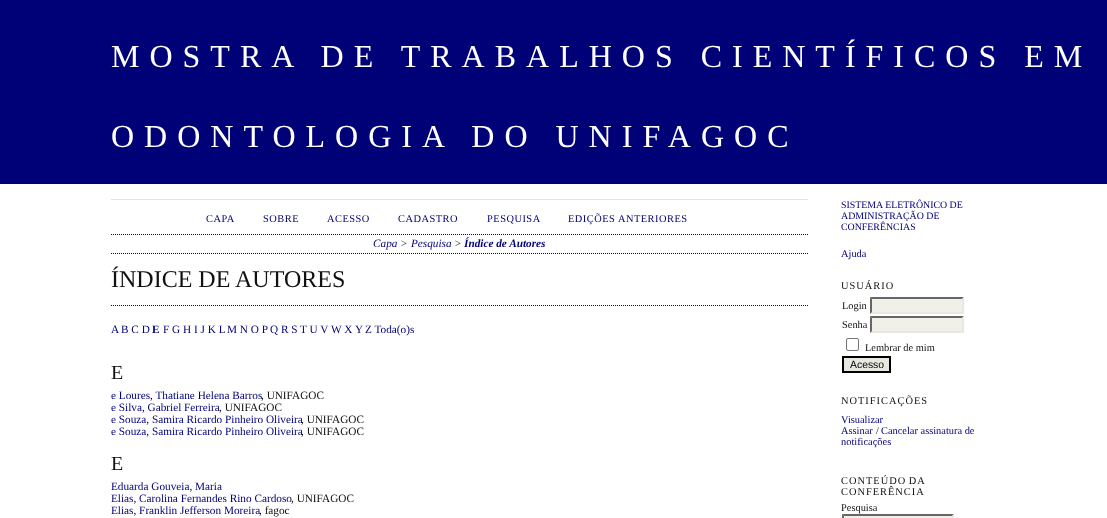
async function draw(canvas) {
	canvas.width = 1107;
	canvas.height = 518;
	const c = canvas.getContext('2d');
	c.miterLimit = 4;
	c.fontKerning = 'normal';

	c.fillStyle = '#fff';
	c.fillRect(0, 0, 1107, 518);
	c.fillStyle = '#007';
	c.fillRect(0, 0, 1107, 184);
	c.letterSpacing = '10px';
	c.font = '32px Liberation Serif';
	c.fillStyle = '#fff';
	c.fillText('MOSTRA DE TRABALHOS CIENTÍFICOS EM', 111, 67);
	c.fillText('ODONTOLOGIA DO UNIFAGOC', 111, 147);
	c.fillStyle = '#ff0';
	c.fillRect(111, 199, 697, 1);
	c.beginPath();
	c.moveTo(111, 234.5);
	c.lineTo(808, 234.5);
	c.strokeStyle = '#007';
	c.setLineDash([1, 1]);
	c.stroke();
	c.letterSpacing = '0.5px';
	c.font = '10.4px Liberation Serif';
	c.fillStyle = '#007';
	for (const [text, x, y] of [
		['CAPA', 206, 222],
		['SOBRE', 263, 222],
		['ACESSO', 327, 222],
		['CADASTRO', 398, 222],
		['PESQUISA', 487, 222],
		['EDIÇÕES ANTERIORES', 568, 222],
	]) {
		c.fillText(text, x, y);
	}
	c.beginPath();
	c.moveTo(111, 253.5);
	c.lineTo(808, 253.5);
	c.stroke();
	c.letterSpacing = '0px';
	c.font = 'italic 11.25px Liberation Serif';
	c.fillText('Capa', 373, 247);
	c.fillStyle = '#111';
	c.fillText('>', 400, 247);
	c.fillStyle = '#007';
	c.fillText('Pesquisa', 411, 247);
	c.fillStyle = '#111';
	c.fillText('>', 454, 247);
	c.font = 'italic bold 11.25px Liberation Serif';
	c.fillStyle = '#007';
	c.fillText('Índice de Autores', 464, 247);
	c.font = '24px Liberation Serif';
	c.fillStyle = '#111';
	c.fillText('ÍNDICE DE AUTORES', 111, 287);
	c.beginPath();
	c.moveTo(111, 305.5);
	c.lineTo(808, 305.5);
	c.stroke();
	c.font = '11.25px Liberation Serif';
	c.fillStyle = '#007';
	c.fillText('A', 111, 333);
	c.fillText('B C D', 121, 333);
	c.font = 'bold 11.25px Liberation Serif';
	c.fillText('E', 152, 333);
	c.font = '11.25px Liberation Serif';
	for (const [text, x, y] of [
		['F G H I J K L', 163, 333],
		['M N O P', 227, 333],
		['Q R S T U V', 270, 333],
		['W X', 331, 333],
		['Y', 355, 333],
		['Z Toda(o)s', 365, 333],
	]) {
		c.fillText(text, x, y);
	}
	c.font = '20px Liberation Serif';
	c.fillStyle = '#111';
	c.fillText('E', 111, 379);
	c.font = '11.25px Liberation Serif';
	c.fillStyle = '#007';
	c.fillText('e Loures, Thatiane Helena Barros', 111, 399);
	c.fillStyle = '#111';
	c.fillText(', UNIFAGOC', 261, 399);
	c.fillStyle = '#007';
	c.fillText('e Silva, Gabriel Ferreira', 111, 411);
	c.fillStyle = '#111';
	c.fillText(', UNIFAGOC', 219, 411);
	c.fillStyle = '#007';
	c.fillText('e Souza, Samira Ricardo Pinheiro Oliveira', 111, 423);
	c.fillStyle = '#111';
	c.fillText(', UNIFAGOC', 301, 423);
	c.fillStyle = '#007';
	c.fillText('e Souza, Samira Ricardo Pinheiro Oliveira', 111, 435);
	c.fillStyle = '#111';
	c.fillText(', UNIFAGOC', 301, 435);
	c.font = '20px Liberation Serif';
	c.fillText('E', 111, 470);
	c.font = '11.25px Liberation Serif';
	c.fillStyle = '#007';
	c.fillText('Eduarda Gouveia, Maria', 111, 490);
	c.fillText('Elias, Carolina Fernandes Rino Cardoso', 111, 502);
	c.fillStyle = '#111';
	c.fillText(', UNIFAGOC', 291, 502);
	c.fillStyle = '#007';
	c.fillText('Elias, Franklin Jefferson Moreira', 111, 514);
	c.fillStyle = '#111';
	c.fillText(', fagoc', 259, 514);
	c.font = '9.9px Liberation Serif';
	c.fillStyle = '#007';
	for (const [text, x, y] of [
		['SISTEMA ELETRÔNICO DE', 841, 208],
		['ADMINISTRAÇÃO DE', 841, 219],
		['CONFERÊNCIAS', 841, 230],
	]) {
		c.fillText(text, x, y);
	}
	c.font = '10.4px Liberation Serif';
	c.fillText('Ajuda', 841, 257);
	c.letterSpacing = '1px';
	c.fillStyle = '#111';
	c.fillText('USUÁRIO', 841, 289);
	c.letterSpacing = '0px';
	c.fillText('Login', 842, 309);
	c.fillStyle = '#f0f0e8';
	c.fillRect(870, 297, 94, 17);
	c.fillStyle = '#666';
	c.beginPath();
	c.moveTo(870, 297);
	c.lineTo(964, 297);
	c.lineTo(962, 299);
	c.lineTo(872, 299);
	c.closePath();
	c.fill();
	c.fillStyle = '#e8e8e1';
	c.beginPath();
	c.moveTo(964, 297);
	c.lineTo(964, 314);
	c.lineTo(962, 312);
	c.lineTo(962, 299);
	c.closePath();
	c.fill();
	c.beginPath();
	c.moveTo(964, 314);
	c.lineTo(870, 314);
	c.lineTo(872, 312);
	c.lineTo(962, 312);
	c.closePath();
	c.fill();
	c.fillStyle = '#666';
	c.beginPath();
	c.moveTo(870, 314);
	c.lineTo(870, 297);
	c.lineTo(872, 299);
	c.lineTo(872, 312);
	c.closePath();
	c.fill();
	c.fillStyle = '#111';
	c.fillText('Senha', 842, 328);
	c.fillStyle = '#f0f0e8';
	c.fillRect(870, 316, 94, 17);
	c.fillStyle = '#666';
	c.beginPath();
	c.moveTo(870, 316);
	c.lineTo(964, 316);
	c.lineTo(962, 318);
	c.lineTo(872, 318);
	c.closePath();
	c.fill();
	c.fillStyle = '#e8e8e1';
	c.beginPath();
	c.moveTo(964, 316);
	c.lineTo(964, 333);
	c.lineTo(962, 331);
	c.lineTo(962, 318);
	c.closePath();
	c.fill();
	c.beginPath();
	c.moveTo(964, 333);
	c.lineTo(870, 333);
	c.lineTo(872, 331);
	c.lineTo(962, 331);
	c.closePath();
	c.fill();
	c.fillStyle = '#666';
	c.beginPath();
	c.moveTo(870, 333);
	c.lineTo(870, 316);
	c.lineTo(872, 318);
	c.lineTo(872, 331);
	c.closePath();
	c.fill();
	c.beginPath();
	c.roundRect(846.5, 338.5, 12, 12, 1.5);
	c.strokeStyle = '#767676';
	c.setLineDash([]);
	c.stroke();
	c.fillStyle = '#111';
	c.fillText('Lembrar de mim', 865, 351);
	c.fillStyle = '#e8e8e1';
	c.beginPath();
	c.rect(843, 357, 47, 15);
	c.fill();
	c.strokeStyle = '#000';
	c.lineWidth = 2;
	c.stroke();
	c.font = '10.4px Liberation Sans';
	c.fillStyle = '#000';
	c.fillText('Acesso', 850, 368);
	c.letterSpacing = '1px';
	c.font = '10.4px Liberation Serif';
	c.fillStyle = '#111';
	c.fillText('NOTIFICAÇÕES', 841, 404);
	c.letterSpacing = '0px';
	c.fillStyle = '#007';
	c.fillText('Visualizar', 841, 423);
	c.fillText('Assinar', 841, 434);
	c.fillStyle = '#111';
	c.fillText('/', 876, 434);
	c.fillStyle = '#007';
	c.fillText('Cancelar assinatura de', 881, 434);
	c.fillText('notificações', 841, 445);
	c.letterSpacing = '1px';
	c.wordSpacing = '-1px';
	c.fillStyle = '#111';
	c.fillText('CONTEÚDO DA', 841, 484);
	c.wordSpacing = '0px';
	c.fillText('CONFERÊNCIA', 841, 495);
	c.letterSpacing = '0px';
	c.fillText('Pesquisa', 841, 511);
	c.fillStyle = '#f0f0e8';
	c.fillRect(842, 514, 112, 4);
	c.fillStyle = '#666';
	c.beginPath();
	c.moveTo(842, 514);
	c.lineTo(954, 514);
	c.lineTo(952, 516);
	c.lineTo(844, 516);
	c.closePath();
	c.fill();
	c.fillStyle = '#e8e8e1';
	c.beginPath();
	c.moveTo(954, 514);
	c.lineTo(954, 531);
	c.lineTo(952, 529);
	c.lineTo(952, 516);
	c.closePath();
	c.fill();
	c.fillStyle = '#666';
	c.beginPath();
	c.moveTo(842, 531);
	c.lineTo(842, 514);
	c.lineTo(844, 516);
	c.lineTo(844, 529);
	c.closePath();
	c.fill();
}

draw(document.querySelector('canvas'));
